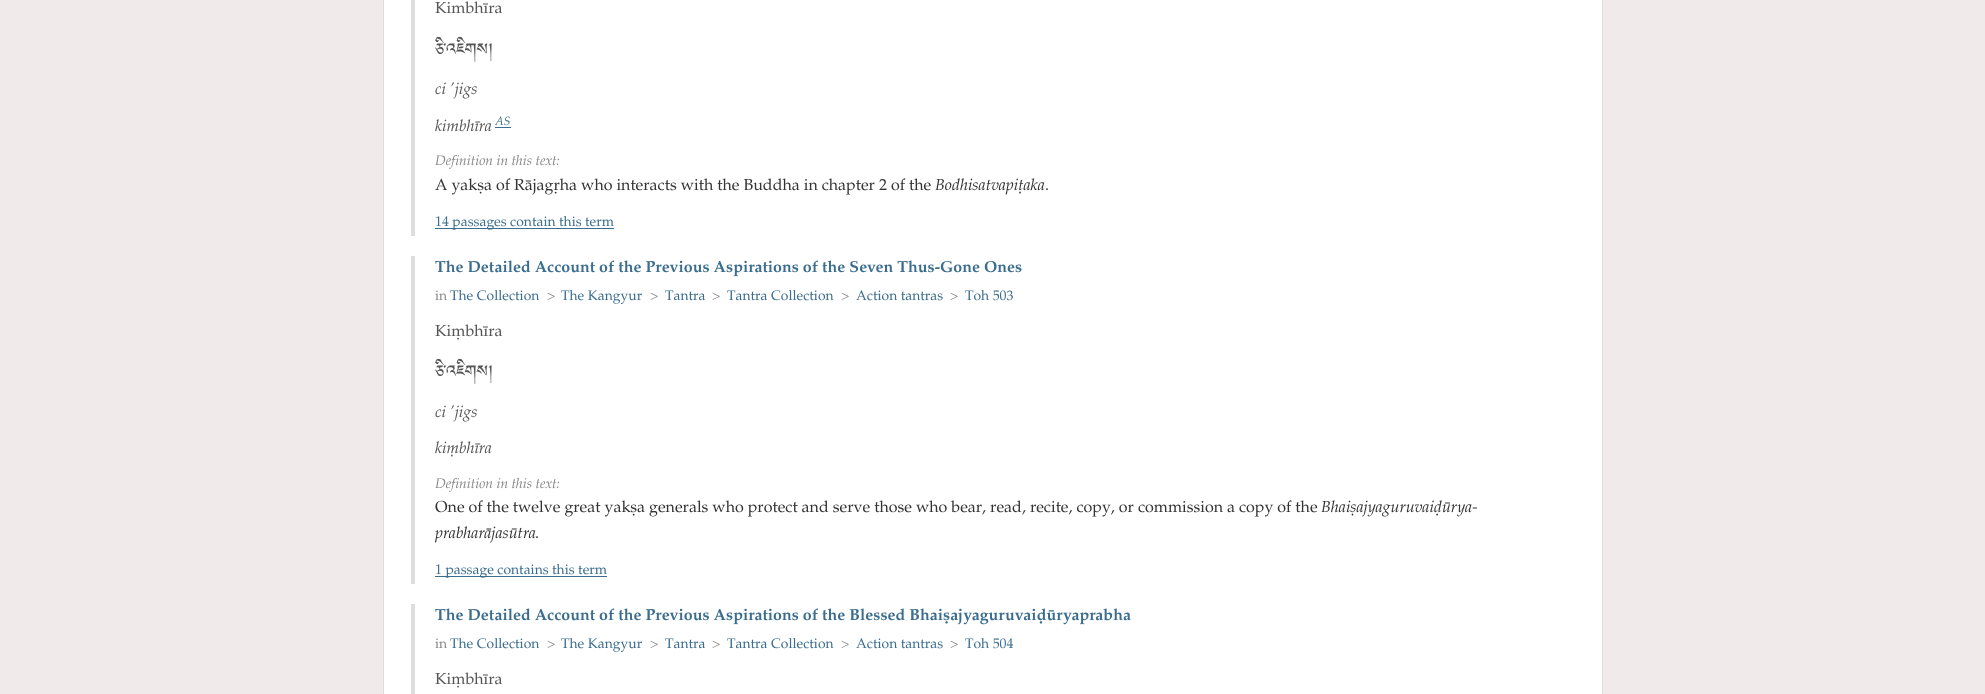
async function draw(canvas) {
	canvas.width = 1985;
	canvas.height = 694;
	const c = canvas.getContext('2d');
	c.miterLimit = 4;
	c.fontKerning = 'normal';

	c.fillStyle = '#f0eaeb';
	c.fillRect(0, 0, 1985, 694);
	c.fillStyle = '#fff';
	c.beginPath();
	c.rect(383.5, -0.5, 1219, 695);
	c.fill();
	c.strokeStyle = '#ddd';
	c.stroke();
	c.fillStyle = '#ddd';
	c.fillRect(411, 0, 4, 236);
	c.font = '16px "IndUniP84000"';
	c.fillStyle = '#555';
	c.fillText('Kimbhīra', 435, 13);
	c.font = '21px Jomolhari';
	c.fillText('ཅི་འཇིགས།', 435, 59);
	c.font = 'italic 16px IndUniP';
	c.fillText('ci ’jigs', 435, 94);
	c.fillText('kimbhīra', 435, 131);
	c.fillStyle = '#3b6d8e';
	c.fillRect(495, 127, 16, 1);
	c.font = 'italic 12px IndUniP';
	c.fillText('AS', 495, 125);
	c.font = 'italic 13.9px IndUniP';
	c.fillStyle = '#888';
	c.fillText('Definition in this text:', 435, 165);
	c.font = '16px "IndUniP84000"';
	c.fillStyle = '#333';
	c.fillText('A yakṣa of Rājagṛha who interacts with the Buddha in chapter 2 of the', 435, 190);
	c.font = 'italic 16px IndUniP';
	c.fillText('Bodhisatvapiṭaka', 935, 190);
	c.font = '16px "IndUniP84000"';
	c.fillText('.', 1045, 190);
	c.fillStyle = '#3b6d8e';
	c.fillRect(435, 228, 179, 1);
	c.font = '13.9px "IndUniP84000"';
	c.fillText('14 passages contain this term', 435, 226);
	c.fillStyle = '#ddd';
	c.fillRect(411, 256, 4, 328);
	c.font = 'bold 16px IndUniP';
	c.fillStyle = '#3b6d8e';
	c.fillText('The Detailed Account of the Previous Aspirations of the Seven Thus-Gone Ones', 435, 272);
	c.font = '13.9px "IndUniP84000"';
	c.fillStyle = '#888';
	c.fillText('in', 435, 300);
	c.fillStyle = '#3b6d8e';
	c.fillText('The Collection', 450, 300);
	c.fillStyle = '#888';
	c.fillText('>', 547, 300);
	c.fillStyle = '#3b6d8e';
	c.fillText('The Kangyur', 561, 300);
	c.fillStyle = '#888';
	c.fillText('>', 650, 300);
	c.fillStyle = '#3b6d8e';
	c.fillText('Tantra', 665, 300);
	c.fillStyle = '#888';
	c.fillText('>', 712, 300);
	c.fillStyle = '#3b6d8e';
	c.fillText('Tantra Collection', 727, 300);
	c.fillStyle = '#888';
	c.fillText('>', 841, 300);
	c.fillStyle = '#3b6d8e';
	c.fillText('Action tantras', 856, 300);
	c.fillStyle = '#888';
	c.fillText('>', 950, 300);
	c.fillStyle = '#3b6d8e';
	c.fillText('Toh 503', 965, 300);
	c.font = '16px "IndUniP84000"';
	c.fillStyle = '#555';
	c.fillText('Kiṃbhīra', 435, 336);
	c.font = '21px Jomolhari';
	c.fillText('ཅི་འཇིགས།', 435, 381);
	c.font = 'italic 16px IndUniP';
	c.fillText('ci ’jigs', 435, 417);
	c.fillText('kiṃbhīra', 435, 453);
	c.font = 'italic 13.9px IndUniP';
	c.fillStyle = '#888';
	c.fillText('Definition in this text:', 435, 488);
	c.font = '16px "IndUniP84000"';
	c.fillStyle = '#333';
	c.fillText('One of the twelve great yakṣa generals who protect and serve those who bear, read, recite, copy, or commission a copy of the', 435, 512);
	c.font = 'italic 16px IndUniP';
	c.fillText('Bhaiṣajyaguruvaiḍūrya-', 1321, 512);
	c.fillText('prabharājasūtra', 435, 538);
	c.font = '16px "IndUniP84000"';
	c.fillText('.', 535, 538);
	c.fillStyle = '#3b6d8e';
	c.fillRect(435, 576, 172, 1);
	c.font = '13.9px "IndUniP84000"';
	c.fillText('1 passage contains this term', 435, 574);
	c.fillStyle = '#ddd';
	c.fillRect(411, 604, 4, 90);
	c.font = 'bold 16px IndUniP';
	c.fillStyle = '#3b6d8e';
	c.fillText('The Detailed Account of the Previous Aspirations of the Blessed Bhaiṣajyaguruvaiḍūryaprabha', 435, 620);
	c.font = '13.9px "IndUniP84000"';
	c.fillStyle = '#888';
	c.fillText('in', 435, 648);
	c.fillStyle = '#3b6d8e';
	c.fillText('The Collection', 450, 648);
	c.fillStyle = '#888';
	c.fillText('>', 547, 648);
	c.fillStyle = '#3b6d8e';
	c.fillText('The Kangyur', 561, 648);
	c.fillStyle = '#888';
	c.fillText('>', 650, 648);
	c.fillStyle = '#3b6d8e';
	c.fillText('Tantra', 665, 648);
	c.fillStyle = '#888';
	c.fillText('>', 712, 648);
	c.fillStyle = '#3b6d8e';
	c.fillText('Tantra Collection', 727, 648);
	c.fillStyle = '#888';
	c.fillText('>', 841, 648);
	c.fillStyle = '#3b6d8e';
	c.fillText('Action tantras', 856, 648);
	c.fillStyle = '#888';
	c.fillText('>', 950, 648);
	c.fillStyle = '#3b6d8e';
	c.fillText('Toh 504', 965, 648);
	c.font = '16px "IndUniP84000"';
	c.fillStyle = '#555';
	c.fillText('Kiṃbhīra', 435, 684);
}

draw(document.querySelector('canvas'));
